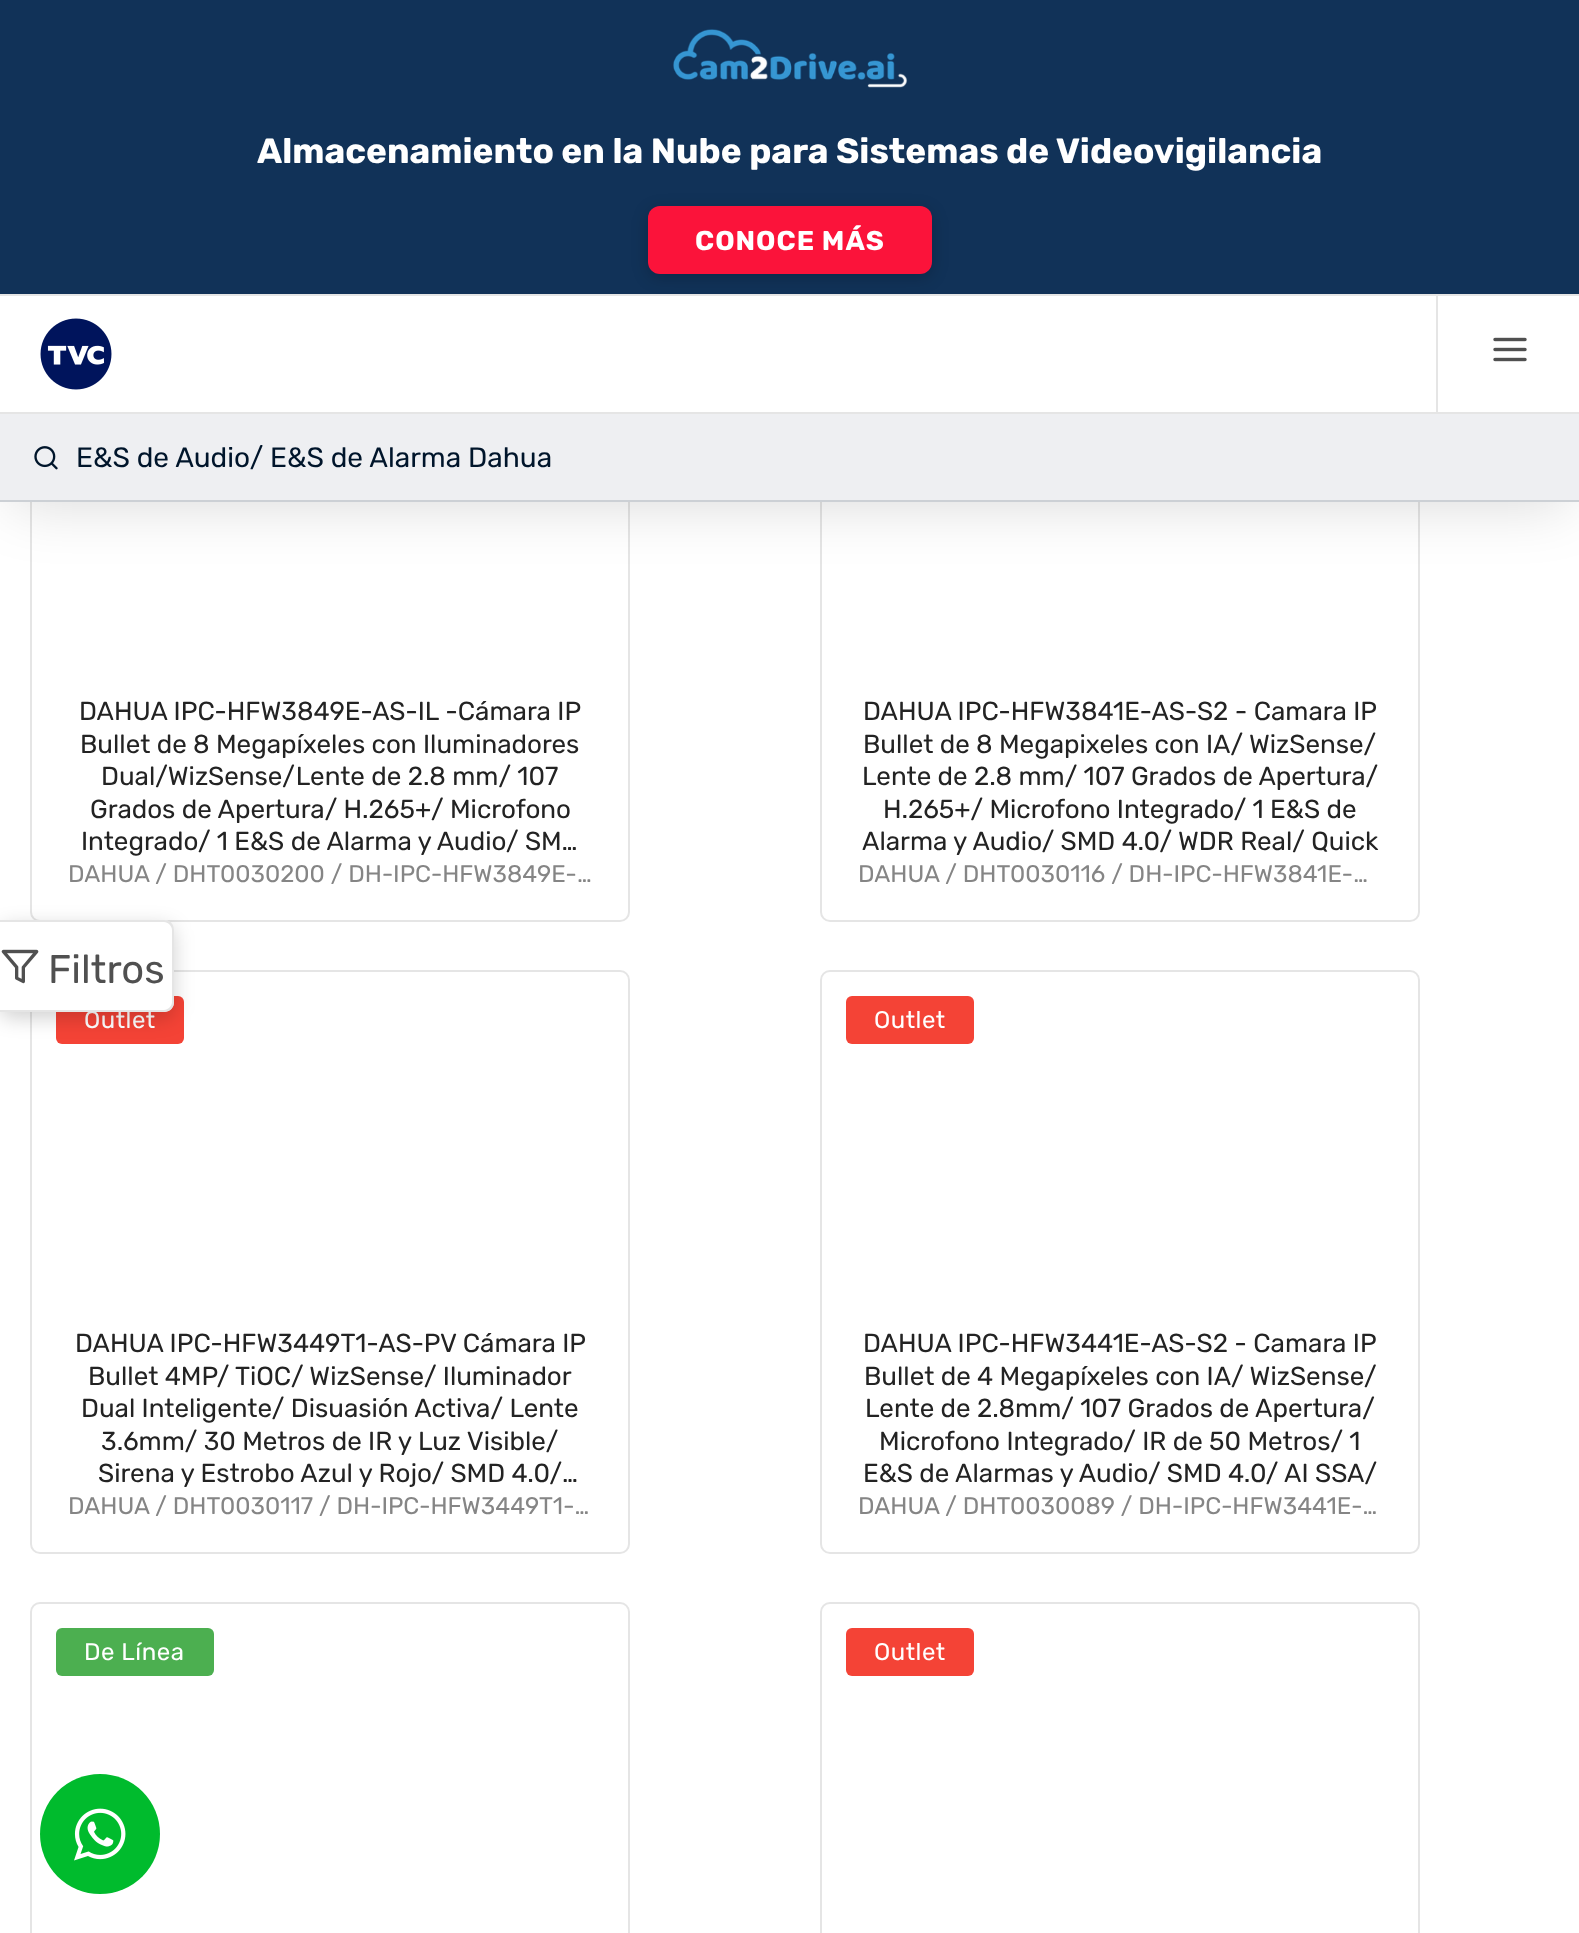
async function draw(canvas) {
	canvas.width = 1579;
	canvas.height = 1933;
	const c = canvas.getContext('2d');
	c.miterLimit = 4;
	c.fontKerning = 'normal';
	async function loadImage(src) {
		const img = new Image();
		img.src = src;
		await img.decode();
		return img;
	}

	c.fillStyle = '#fff';
	c.fillRect(0, 0, 1579, 1933);
	c.beginPath();
	c.roundRect(31, 339, 598, 582, 9);
	c.strokeStyle = '#e5e5e5';
	c.lineWidth = 2;
	c.stroke();
	c.beginPath();
	c.roundRect(821, 339, 598, 582, 9);
	c.stroke();
	c.fillStyle = '#00000026';
	c.filter = 'blur(30px)';
	c.beginPath();
	c.rect(12, 26, 1556, 478);
	c.fill();
	c.filter = 'none';
	c.fillStyle = '#113258';
	c.fillRect(0, 0, 1579, 294);
	c.drawImage(await loadImage('img1.png'), 673, 29, 235, 59);
	c.font = 'bold 35.2px Rubik';
	c.fillStyle = '#fff';
	c.fillText('Almacenamiento en la Nube para Sistemas de Videovigilancia', 257, 163);
	c.fillRect(0, 296, 1579, 116);
	c.fillStyle = '#e5e5e5';
	c.fillRect(0, 294, 1579, 2);
	c.fillStyle = '#00000033';
	c.filter = 'blur(8px)';
	c.beginPath();
	c.roundRect(648, 210, 284, 68, 12);
	c.fill();
	c.filter = 'none';
	c.fillStyle = '#fb133a';
	c.beginPath();
	c.roundRect(648, 206, 284, 68, 12);
	c.fill();
	c.letterSpacing = '1px';
	c.font = 'bold 27.25px Rubik';
	c.fillStyle = '#fff';
	c.fillText('CONOCE MÁS', 695, 250);
	c.fillStyle = '#e5e5e5';
	c.fillRect(0, 412, 1579, 2);
	c.drawImage(await loadImage('img2.png'), 40, 318, 72, 72);
	c.fillRect(1436, 296, 2, 116);
	c.drawImage(await loadImage('img3.png'), 1493, 337, 34, 25);
	c.fillStyle = '#eeeff2';
	c.fillRect(0, 414, 1579, 86);
	c.fillStyle = '#ccd0d5';
	c.fillRect(0, 500, 1579, 2);
	c.drawImage(await loadImage('img4.png'), 34, 446, 24, 24);
	c.letterSpacing = '0px';
	c.font = '28px Rubik';
	c.fillStyle = '#00152b';
	c.fillText('E&S de Audio/ E&S de Alarma Dahua', 76, 467);
	c.font = '26px Rubik';
	c.fillStyle = '#232323';
	for (const [text, x, y] of [
		['DAHUA IPC-HFW3849E-AS-IL -Cámara IP', 79, 720],
		['Bullet de 8 Megapíxeles con Iluminadores', 80, 753],
		['Dual/WizSense/Lente de 2.8 mm/ 107', 101, 785],
		['Grados de Apertura/ H.265+/ Microfono', 90, 818],
		['Integrado/ 1 E&S de Alarma y Audio/ SM…', 81, 850],
	]) {
		c.fillText(text, x, y);
	}
	c.font = '24px Rubik';
	c.fillStyle = '#858585';
	c.fillText('DAHUA / DHT0030200 / DH-IPC-HFW3849E-…', 68, 882);
	c.font = '26px Rubik';
	c.fillStyle = '#232323';
	for (const [text, x, y] of [
		['DAHUA IPC-HFW3841E-AS-S2 - Camara IP', 863, 720],
		['Bullet de 8 Megapixeles con IA/ WizSense/', 863, 753],
		['Lente de 2.8 mm/ 107 Grados de Apertura/', 862, 785],
		['H.265+/ Microfono Integrado/ 1 E&S de', 883, 818],
		['Alarma y Audio/ SMD 4.0/ WDR Real/ Quick', 862, 850],
	]) {
		c.fillText(text, x, y);
	}
	c.font = '24px Rubik';
	c.fillStyle = '#858585';
	c.fillText('DAHUA / DHT0030116 / DH-IPC-HFW3841E-…', 858, 882);
	c.beginPath();
	c.roundRect(31, 971, 598, 582, 9);
	c.stroke();
	c.fillStyle = '#f44336';
	c.beginPath();
	c.roundRect(56, 996, 128, 48, 6);
	c.fill();
	c.letterSpacing = '0.5px';
	c.fillStyle = '#fff';
	c.fillText('Outlet', 84, 1028);
	c.letterSpacing = '0px';
	c.font = '26px Rubik';
	c.fillStyle = '#232323';
	for (const [text, x, y] of [
		['DAHUA IPC-HFW3449T1-AS-PV Cámara IP', 75, 1352],
		['Bullet 4MP/ TiOC/ WizSense/ Iluminador', 88, 1385],
		['Dual Inteligente/ Disuasión Activa/ Lente', 81, 1417],
		['3.6mm/ 30 Metros de IR y Luz Visible/', 101, 1450],
		['Sirena y Estrobo Azul y Rojo/ SMD 4.0/…', 98, 1482],
	]) {
		c.fillText(text, x, y);
	}
	c.font = '24px Rubik';
	c.fillStyle = '#858585';
	c.fillText('DAHUA / DHT0030117 / DH-IPC-HFW3449T1-…', 68, 1514);
	c.beginPath();
	c.roundRect(821, 971, 598, 582, 9);
	c.stroke();
	c.fillStyle = '#f44336';
	c.beginPath();
	c.roundRect(846, 996, 128, 48, 6);
	c.fill();
	c.letterSpacing = '0.5px';
	c.fillStyle = '#fff';
	c.fillText('Outlet', 874, 1028);
	c.letterSpacing = '0px';
	c.font = '26px Rubik';
	c.fillStyle = '#232323';
	for (const [text, x, y] of [
		['DAHUA IPC-HFW3441E-AS-S2 - Camara IP', 863, 1352],
		['Bullet de 4 Megapíxeles con IA/ WizSense/', 864, 1385],
		['Lente de 2.8mm/ 107 Grados de Apertura/', 865, 1417],
		['Microfono Integrado/ IR de 50 Metros/ 1', 879, 1450],
		['E&S de Alarmas y Audio/ SMD 4.0/ AI SSA/', 863, 1482],
	]) {
		c.fillText(text, x, y);
	}
	c.font = '24px Rubik';
	c.fillStyle = '#858585';
	c.fillText('DAHUA / DHT0030089 / DH-IPC-HFW3441E-…', 858, 1514);
	c.beginPath();
	c.roundRect(31, 1603, 598, 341, 9);
	c.stroke();
	c.fillStyle = '#4caf50';
	c.beginPath();
	c.roundRect(56, 1628, 158, 48, 6);
	c.fill();
	c.letterSpacing = '0.5px';
	c.fillStyle = '#fff';
	c.fillText('De Línea', 84, 1660);
	c.beginPath();
	c.roundRect(821, 1603, 598, 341, 9);
	c.stroke();
	c.fillStyle = '#f44336';
	c.beginPath();
	c.roundRect(846, 1628, 128, 48, 6);
	c.fill();
	c.fillStyle = '#fff';
	c.fillText('Outlet', 874, 1660);
	c.fillStyle = '#0000002e';
	c.filter = 'blur(10px)';
	c.beginPath();
	c.roundRect(0, 926, 174, 92, 10);
	c.fill();
	c.filter = 'none';
	c.fillStyle = '#fff';
	c.beginPath();
	c.roundRect(0, 920, 174, 92, [0, 10, 10, 0]);
	c.fill();
	c.fillStyle = '#e5e5e5';
	c.beginPath();
	c.moveTo(0, 920);
	c.lineTo(164, 920);
	c.bezierCurveTo(170, 920, 174, 924, 174, 930);
	c.lineTo(174, 1002);
	c.bezierCurveTo(174, 1008, 170, 1012, 164, 1012);
	c.lineTo(0, 1012);
	c.closePath();
	c.moveTo(0, 922);
	c.lineTo(164, 922);
	c.bezierCurveTo(168, 922, 172, 926, 172, 930);
	c.lineTo(172, 1002);
	c.bezierCurveTo(172, 1006, 168, 1010, 164, 1010);
	c.lineTo(0, 1010);
	c.closePath();
	c.fill('evenodd');
	c.drawImage(await loadImage('img5.png'), 1, 949, 38, 35);
	c.letterSpacing = '0px';
	c.font = '40px Rubik';
	c.fillStyle = '#505050';
	c.fillText('Filtros', 48, 983);
	c.fillStyle = '#00bb2d';
	c.beginPath();
	c.arc(100, 1834, 60, 0, 2 * Math.PI);
	c.fill();
	c.drawImage(await loadImage('img6.png'), 74, 1808, 52, 53);
}

draw(document.querySelector('canvas'));
